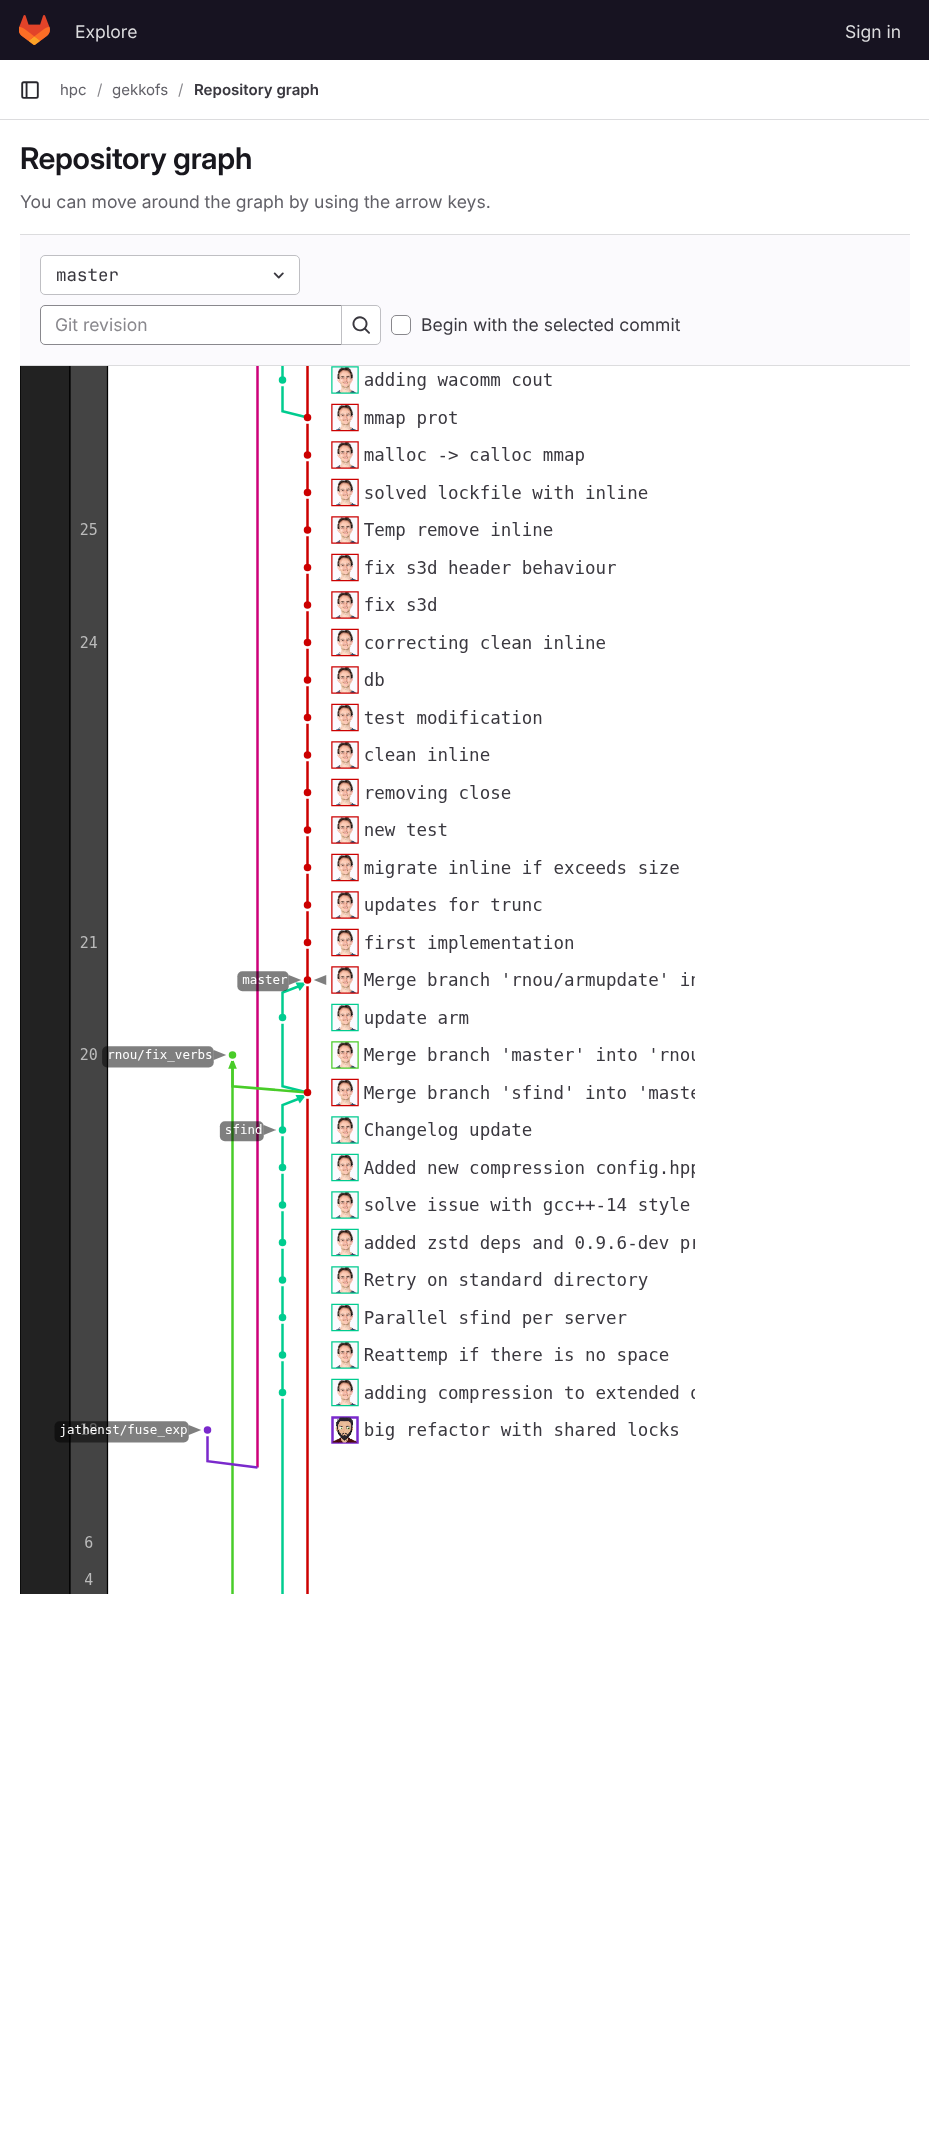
async function draw(canvas) {
	canvas.width = 929;
	canvas.height = 2146;
	const c = canvas.getContext('2d');
	c.miterLimit = 4;
	c.fontKerning = 'normal';
	async function loadImage(src) {
		const img = new Image();
		img.src = src;
		await img.decode();
		return img;
	}

	c.fillStyle = '#fff';
	c.fillRect(0, 0, 929, 2146);
	c.fillStyle = '#171321';
	c.fillRect(0, 0, 929, 60);
	c.drawImage(await loadImage('img1.png'), 19, 15, 31, 30);
	c.font = '17.5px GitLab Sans';
	c.fillStyle = '#dcdcde';
	c.fillText('Explore', 75, 38);
	c.fillText('Sign in', 845, 38);
	c.fillRect(0, 119, 929, 1);
	c.drawImage(await loadImage('img2.png'), 21, 81, 18, 18);
	c.font = '15px GitLab Sans';
	c.fillStyle = '#626168';
	c.fillText('hpc', 60, 95);
	c.fillStyle = '#89888d';
	c.fillText('/', 97, 95);
	c.fillStyle = '#626168';
	c.fillText('gekkofs', 112, 95);
	c.fillStyle = '#89888d';
	c.fillText('/', 178, 95);
	c.font = '600 15px "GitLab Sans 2"';
	c.fillStyle = '#3a383f';
	c.fillText('Repository graph', 194, 95);
	c.letterSpacing = '-0.25px';
	c.font = '600 30px GitLab Sans';
	c.fillStyle = '#18171d';
	c.fillText('Repository graph', 20, 169);
	c.letterSpacing = '0px';
	c.font = '17.5px GitLab Sans';
	c.fillStyle = '#626168';
	c.fillText('You can move around the graph by using the arrow keys.', 20, 208);
	for (const [x, y, w, h, color] of [
		[20, 235, 890, 130, '#fbfafd'],
		[20, 234, 890, 1, '#dcdcde'],
		[20, 365, 890, 1, '#dcdcde'],
	]) {
		c.fillStyle = color;
		c.fillRect(x, y, w, h);
	}
	c.fillStyle = '#fff';
	c.beginPath();
	c.roundRect(40.5, 255.5, 259, 39, 4.5);
	c.fill();
	c.strokeStyle = '#bfbfc3';
	c.stroke();
	c.font = '17.5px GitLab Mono';
	c.fillStyle = '#3a383f';
	c.fillText('master', 56, 281);
	c.drawImage(await loadImage('img3.png'), 273, 272, 11, 7);
	c.fillStyle = '#fff';
	c.beginPath();
	c.roundRect(40.5, 305.5, 302, 39, [4.5, 0, 0, 4.5]);
	c.fill();
	c.strokeStyle = '#89888d';
	c.stroke();
	c.font = '17.5px GitLab Sans';
	c.fillStyle = '#89888d';
	c.fillText('Git revision', 55, 331);
	c.fillStyle = '#fff';
	c.beginPath();
	c.roundRect(341.5, 305.5, 39, 39, [0, 4.5, 4.5, 0]);
	c.fill();
	c.strokeStyle = '#bfbfc3';
	c.stroke();
	c.drawImage(await loadImage('img4.png'), 352, 316, 18, 18);
	c.beginPath();
	c.roundRect(391.5, 315.5, 19, 19, 4.5);
	c.fill();
	c.strokeStyle = '#89888d';
	c.stroke();
	c.fillStyle = '#3a383f';
	c.fillText('Begin with the selected commit', 421, 331);
	c.drawImage(await loadImage('img5.png'), 20, 366, 675, 1228);
}

draw(document.querySelector('canvas'));
